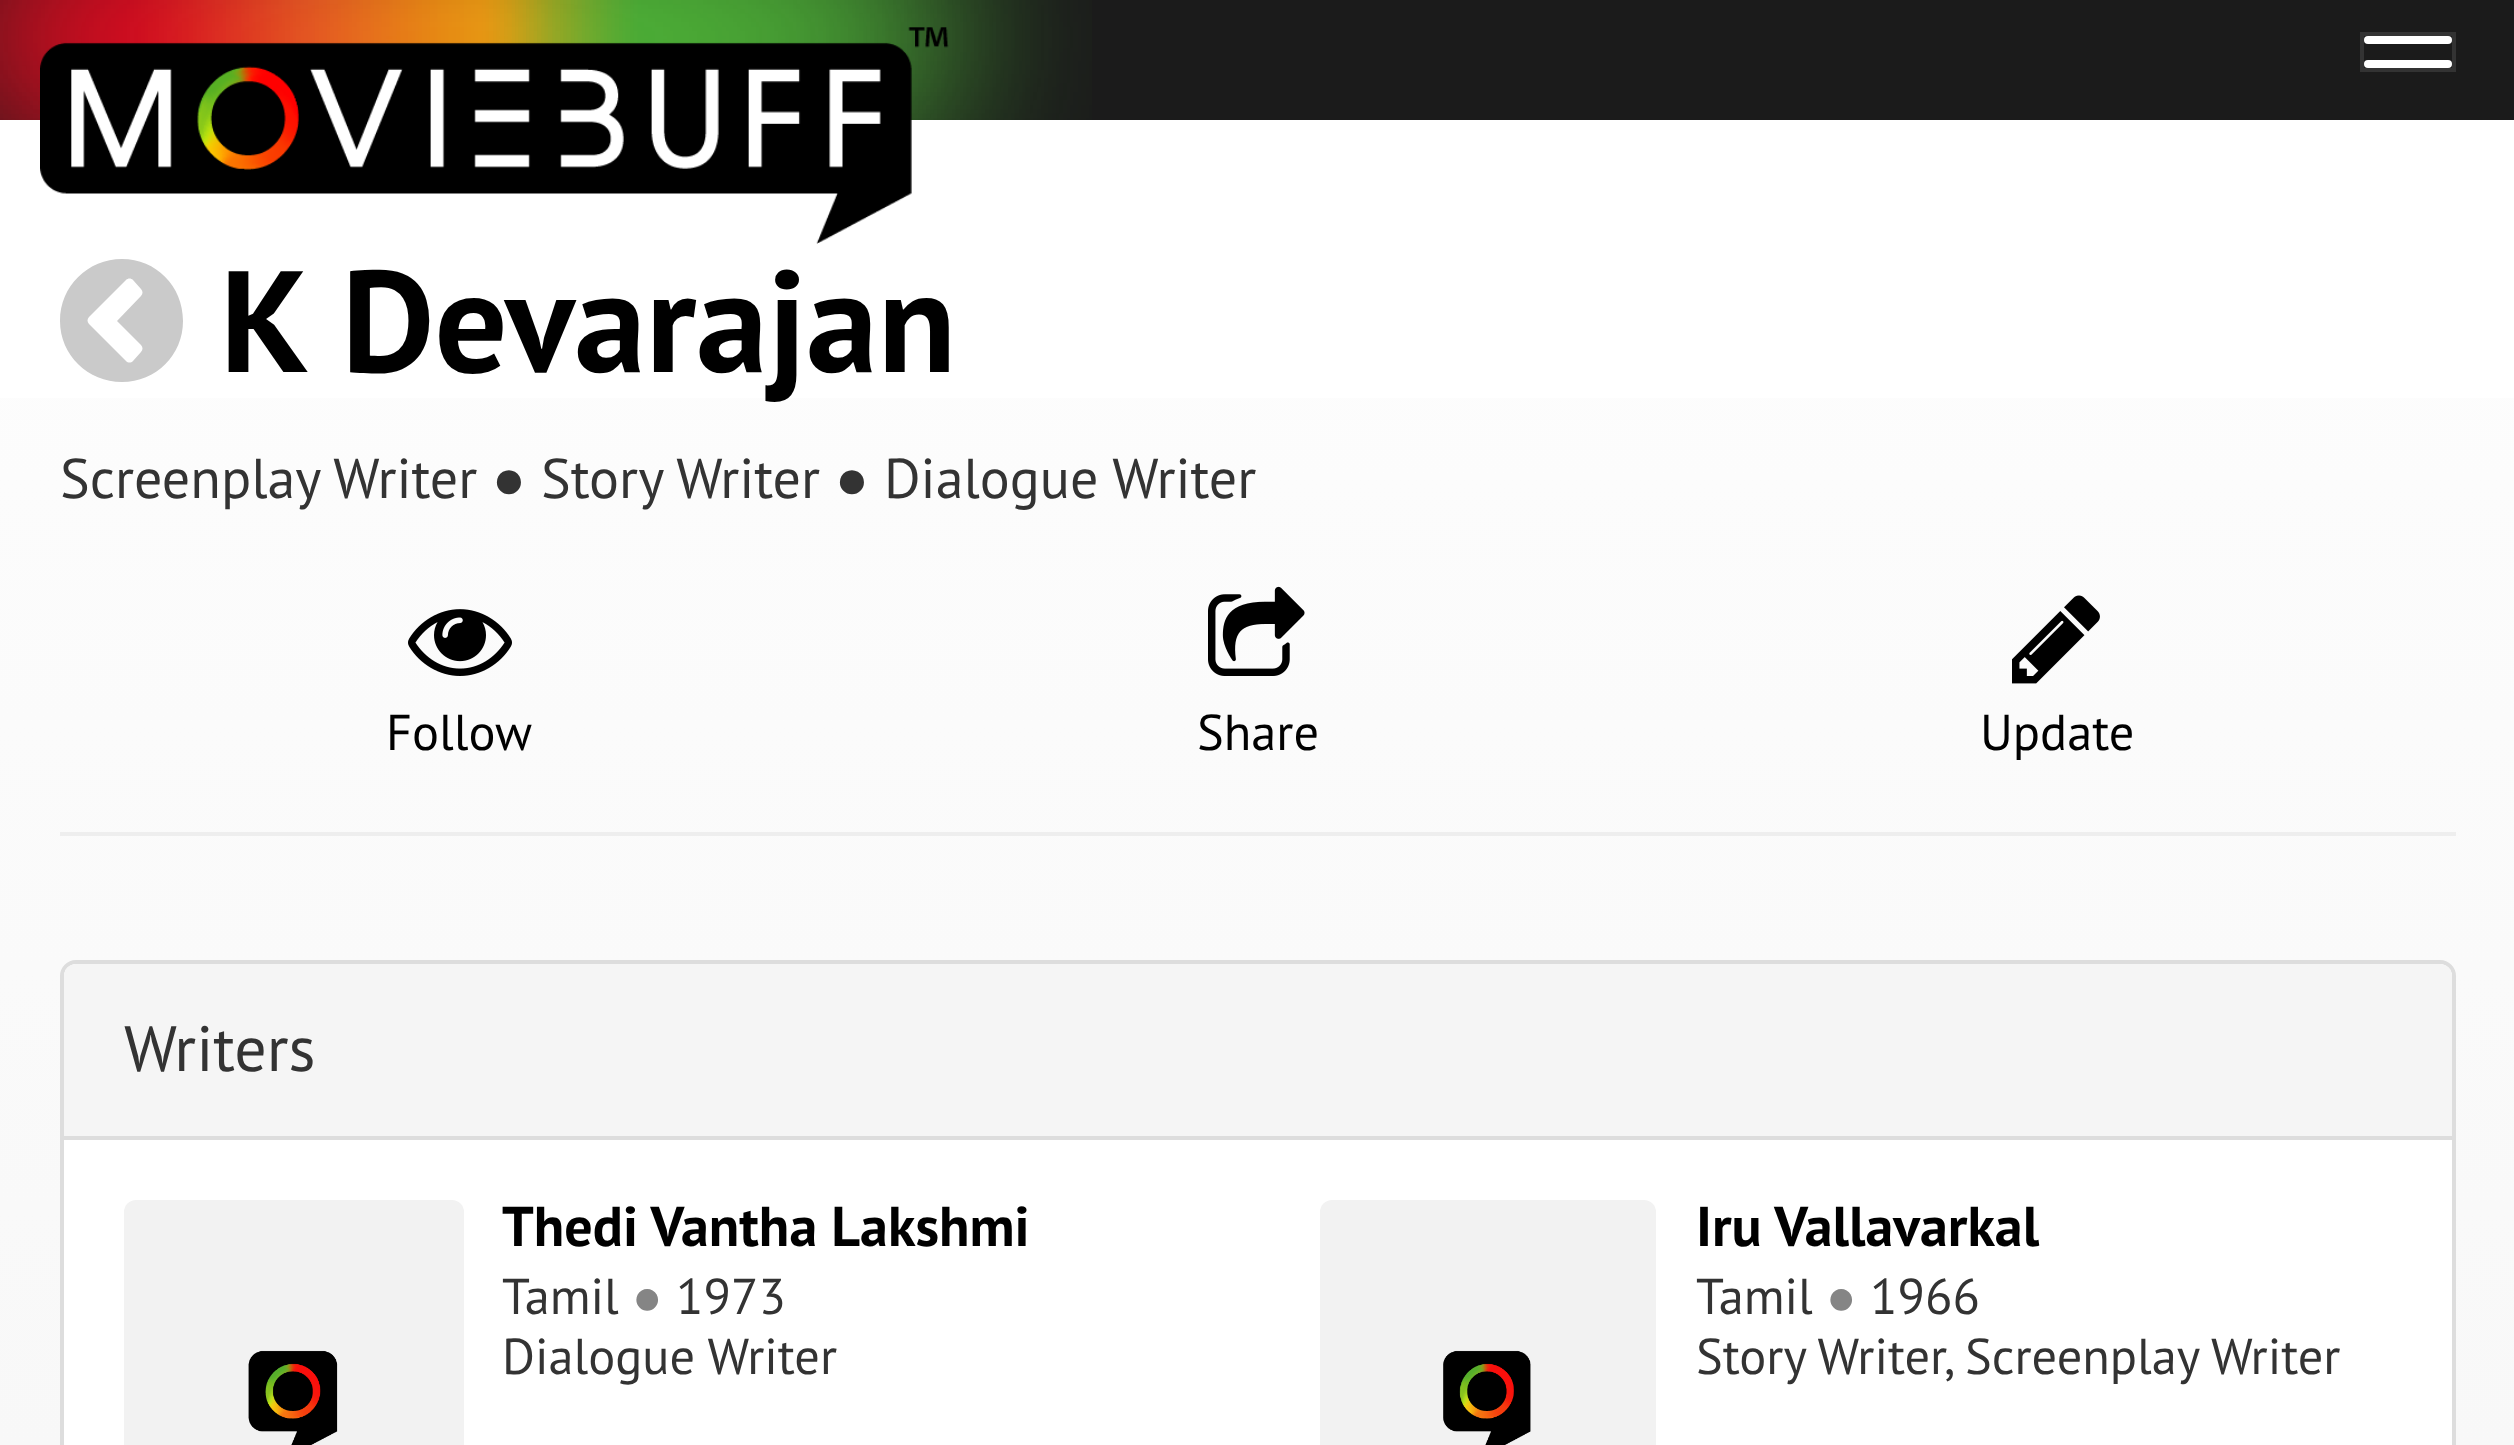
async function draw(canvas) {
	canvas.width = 2514;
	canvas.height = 1445;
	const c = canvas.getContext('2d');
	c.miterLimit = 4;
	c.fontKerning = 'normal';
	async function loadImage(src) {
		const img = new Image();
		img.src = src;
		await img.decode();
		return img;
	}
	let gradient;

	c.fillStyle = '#fff';
	c.fillRect(0, 0, 2514, 1445);
	gradient = c.createLinearGradient(1258, 0, 1258, 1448);
	gradient.addColorStop(0, '#fff');
	gradient.addColorStop(0.33, '#fcfcfc');
	gradient.addColorStop(0.67, '#fafafa');
	gradient.addColorStop(1, '#f8f8f8');
	c.fillStyle = gradient;
	c.fillRect(0, 398, 2514, 1047);
	c.fillStyle = '#1b1b1b';
	c.fillRect(0, 0, 2514, 120);
	c.drawImage(await loadImage('img1.png'), 0, 0, 1092, 120);
	c.drawImage(await loadImage('img2.png'), 40, 27, 909, 217);
	c.strokeStyle = '#333';
	c.lineWidth = 4;
	c.strokeRect(2362, 34, 92, 36);
	c.fillStyle = '#fff';
	c.beginPath();
	c.roundRect(2364, 36, 88, 8, 4);
	c.fill();
	c.beginPath();
	c.roundRect(2364, 60, 88, 8, 4);
	c.fill();
	c.fillStyle = '#cacaca';
	c.beginPath();
	c.moveTo(133, 361);
	c.bezierCurveTo(131, 363, 128, 363, 126, 361);
	c.lineTo(89, 324);
	c.bezierCurveTo(87, 322, 87, 319, 89, 317);
	c.lineTo(126, 280);
	c.bezierCurveTo(128, 278, 131, 278, 133, 280);
	c.lineTo(141, 289);
	c.bezierCurveTo(143, 291, 143, 294, 141, 296);
	c.lineTo(117, 321);
	c.lineTo(141, 345);
	c.bezierCurveTo(143, 347, 143, 350, 141, 352);
	c.closePath();
	c.moveTo(183, 321);
	c.bezierCurveTo(183, 286, 156, 259, 122, 259);
	c.bezierCurveTo(88, 259, 60, 286, 60, 321);
	c.bezierCurveTo(60, 355, 88, 382, 122, 382);
	c.bezierCurveTo(156, 382, 183, 355, 183, 321);
	c.closePath();
	c.fill();
	c.font = 'bold 144px PT Sans';
	c.fillStyle = '#000';
	c.fillText('K Devarajan', 220, 372);
	c.font = '56px PT Sans';
	c.fillStyle = '#333';
	c.fillText('Screenplay Writer', 60, 498);
	c.font = '56px Liberation Serif';
	c.fillText('●', 492, 498);
	c.font = '56px PT Sans';
	c.fillText('Story Writer', 541, 498);
	c.font = '56px Liberation Serif';
	c.fillText('●', 835, 498);
	c.font = '56px PT Sans';
	c.fillText('Dialogue Writer', 884, 498);
	c.drawImage(await loadImage('img3.png'), 408, 609, 104, 67);
	c.font = '50.4px PT Sans';
	c.fillStyle = '#000';
	c.fillText('Follow', 386, 750);
	c.drawImage(await loadImage('img4.png'), 1208, 586, 97, 90);
	c.fillText('Share', 1197, 750);
	c.drawImage(await loadImage('img5.png'), 2012, 595, 88, 89);
	c.fillText('Update', 1980, 750);
	c.fillStyle = '#eee';
	c.fillRect(60, 832, 2396, 4);
	c.fillStyle = '#fff';
	c.beginPath();
	c.roundRect(62, 962, 2392, 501, 14);
	c.fill();
	c.strokeStyle = '#ddd';
	c.stroke();
	c.fillStyle = '#f5f5f5';
	c.beginPath();
	c.roundRect(64, 964, 2388, 176, [12, 12, 0, 0]);
	c.fill();
	c.fillStyle = '#ddd';
	c.fillRect(64, 1136, 2388, 4);
	c.font = '64px PT Sans';
	c.fillStyle = '#333';
	c.fillText('Writers', 124, 1071);
	c.drawImage(await loadImage('img6.png'), 124, 1200, 340, 245);
	c.font = 'bold 56px PT Sans';
	c.fillStyle = '#000';
	c.fillText('Thedi Vantha Lakshmi', 502, 1246);
	c.font = '50.4px PT Sans';
	c.fillStyle = '#333';
	c.fillText('Tamil', 502, 1314);
	c.font = '50.4px Liberation Serif';
	c.fillStyle = '#858585';
	c.fillText('●', 632, 1314);
	c.font = '50.4px PT Sans';
	c.fillStyle = '#333';
	c.fillText('1973', 676, 1314);
	c.fillText('Dialogue Writer', 502, 1374);
	c.drawImage(await loadImage('img7.png'), 1320, 1200, 336, 245);
	c.font = 'bold 56px PT Sans';
	c.fillStyle = '#000';
	c.fillText('Iru Vallavarkal', 1696, 1246);
	c.font = '50.4px PT Sans';
	c.fillStyle = '#333';
	c.fillText('Tamil', 1696, 1314);
	c.font = '50.4px Liberation Serif';
	c.fillStyle = '#858585';
	c.fillText('●', 1826, 1314);
	c.font = '50.4px PT Sans';
	c.fillStyle = '#333';
	c.fillText('1966', 1870, 1314);
	c.fillText('Story Writer, Screenplay Writer', 1696, 1374);
}

draw(document.querySelector('canvas'));
